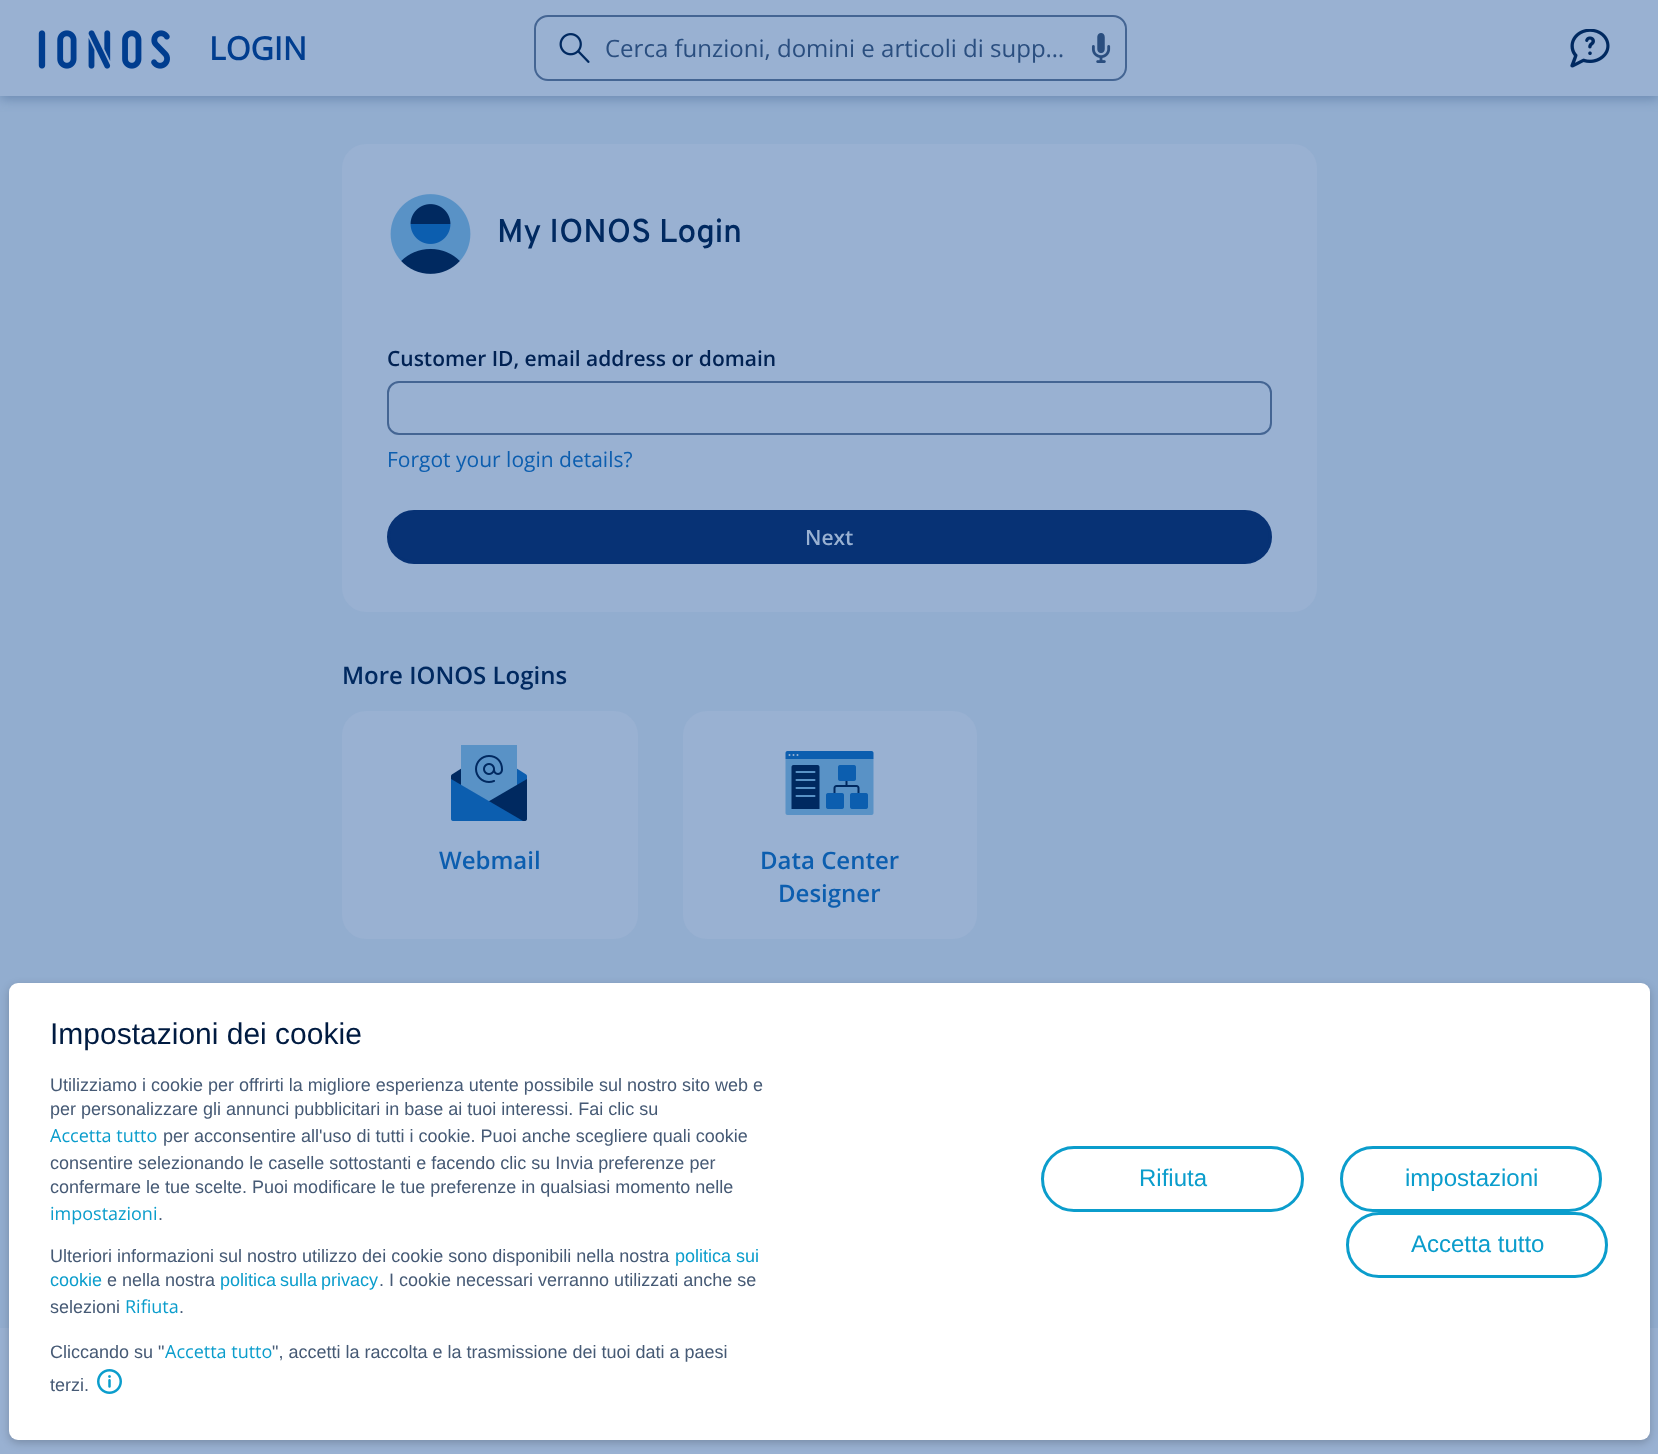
async function draw(canvas) {
	canvas.width = 1658;
	canvas.height = 1454;
	const c = canvas.getContext('2d');
	c.miterLimit = 4;
	c.fontKerning = 'normal';
	async function loadImage(src) {
		const img = new Image();
		img.src = src;
		await img.decode();
		return img;
	}

	c.fillStyle = '#99b1d2';
	c.fillRect(0, 0, 1658, 1454);
	c.fillStyle = '#92adcf';
	c.fillRect(0, 96, 1658, 1232);
	c.fillStyle = '#44659380';
	c.filter = 'blur(6px)';
	c.beginPath();
	c.rect(0, 3, 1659, 96);
	c.fill();
	c.filter = 'none';
	c.fillStyle = '#99b1d2';
	c.fillRect(0, 0, 1658, 96);
	c.drawImage(await loadImage('img1.png'), 38, 30, 132, 39);
	c.font = 'bold 32px Open Sans';
	c.fillStyle = '#003d8f';
	c.fillText('LOGIN', 209, 60);
	c.beginPath();
	c.roundRect(535, 16, 591, 64, 13);
	c.strokeStyle = '#446593';
	c.lineWidth = 2;
	c.stroke();
	c.drawImage(await loadImage('img2.png'), 559, 33, 31, 30);
	c.font = '24px Open Sans';
	c.fillStyle = '#2a4e7f';
	c.fillText('Cerca funzioni, domini e articoli di supp…', 605, 57);
	c.drawImage(await loadImage('img3.png'), 1091, 33, 20, 30);
	c.drawImage(await loadImage('img4.png'), 1570, 29, 40, 39);
	c.fillStyle = '#99b1d2';
	c.beginPath();
	c.roundRect(342, 144, 975, 468, 24);
	c.fill();
	c.drawImage(await loadImage('img5.png'), 390, 194, 81, 80);
	c.font = '600 33px Overpass';
	c.fillStyle = '#002960';
	c.fillText('My IONOS Login', 497, 242);
	c.font = '600 21px Open Sans';
	c.fillStyle = '#012253';
	c.fillText('Customer ID, email address or domain', 387, 366);
	c.beginPath();
	c.roundRect(388, 382, 883, 52, 11);
	c.stroke();
	c.font = '21px Open Sans';
	c.fillStyle = '#0c5eaf';
	c.fillText('Forgot your login details?', 387, 467);
	c.fillStyle = '#073275';
	c.beginPath();
	c.roundRect(388.5, 511.5, 882, 51, 25.5);
	c.fill();
	c.strokeStyle = '#073275';
	c.lineWidth = 3;
	c.stroke();
	c.font = '600 21px Open Sans';
	c.fillStyle = '#99b1d2';
	c.fillText('Next', 805, 545);
	c.font = '600 24px Open Sans';
	c.fillStyle = '#002960';
	c.fillText('More IONOS Logins', 342, 684);
	c.fillStyle = '#99b1d2';
	c.beginPath();
	c.roundRect(342, 711, 296, 228, 24);
	c.fill();
	c.drawImage(await loadImage('img6.png'), 451, 745, 76, 76);
	c.fillStyle = '#0c5eaf';
	c.fillText('Webmail', 439, 869);
	c.fillStyle = '#99b1d2';
	c.beginPath();
	c.roundRect(683, 711, 294, 228, 24);
	c.fill();
	c.drawImage(await loadImage('img7.png'), 785, 751, 89, 64);
	c.fillStyle = '#0c5eaf';
	c.fillText('Data Center', 760, 869);
	c.fillText('Designer', 778, 902);
	c.fillStyle = '#00000033';
	c.filter = 'blur(4px)';
	c.beginPath();
	c.roundRect(9, 986, 1641, 457, 9);
	c.fill();
	c.filter = 'none';
	c.fillStyle = '#fff';
	c.beginPath();
	c.roundRect(9, 983, 1641, 457, 9);
	c.fill();
	c.font = '30px Liberation Sans';
	c.fillStyle = '#001b41';
	c.fillText('Impostazioni dei cookie', 50, 1044);
	c.font = '18px Liberation Sans';
	c.fillStyle = '#465a75';
	c.fillText('Utilizziamo i cookie per offrirti la migliore esperienza utente possibile sul nostro sito web e', 50, 1091);
	c.fillText('per personalizzare gli annunci pubblicitari in base ai tuoi interessi. Fai clic su', 50, 1115);
	c.font = '18px Open Sans';
	c.fillStyle = '#0b9dcc';
	c.fillText('Accetta tutto', 50, 1142);
	c.font = '18px Liberation Sans';
	c.fillStyle = '#465a75';
	for (const [text, x, y] of [
		['per acconsentire all\'uso di tutti i cookie. Puoi anche scegliere quali cookie', 163, 1142],
		['consentire selezionando le caselle sottostanti e facendo clic su Invia preferenze per', 50, 1169],
		['confermare le tue scelte. Puoi modificare le tue preferenze in qualsiasi momento nelle', 50, 1193],
	]) {
		c.fillText(text, x, y);
	}
	c.font = '18px Open Sans';
	c.fillStyle = '#0b9dcc';
	c.fillText('impostazioni', 50, 1220);
	c.font = '18px Liberation Sans';
	c.fillStyle = '#465a75';
	c.fillText('.', 158, 1220);
	c.fillText('Ulteriori informazioni sul nostro utilizzo dei cookie sono disponibili nella nostra', 50, 1262);
	c.fillStyle = '#0b9dcc';
	c.fillText('politica sui', 675, 1262);
	c.fillText('cookie', 50, 1286);
	c.fillStyle = '#465a75';
	c.fillText('e nella nostra', 107, 1286);
	c.wordSpacing = '-1px';
	c.fillStyle = '#0b9dcc';
	c.fillText('politica sulla privacy', 220, 1286);
	c.wordSpacing = '0px';
	c.fillStyle = '#465a75';
	c.fillText('. I cookie necessari verranno utilizzati anche se', 379, 1286);
	c.fillText('selezioni', 50, 1313);
	c.font = '18px Open Sans';
	c.fillStyle = '#0b9dcc';
	c.fillText('Rifiuta', 125, 1313);
	c.font = '18px Liberation Sans';
	c.fillStyle = '#465a75';
	c.fillText('.', 179, 1313);
	c.fillText('Cliccando su "', 50, 1358);
	c.font = '18px Open Sans';
	c.fillStyle = '#0b9dcc';
	c.fillText('Accetta tutto', 165, 1358);
	c.font = '18px Liberation Sans';
	c.fillStyle = '#465a75';
	c.fillText('", accetti la raccolta e la trasmissione dei tuoi dati a paesi', 272, 1358);
	c.fillText('terzi.', 50, 1391);
	c.drawImage(await loadImage('img8.png'), 97, 1369, 25, 25);
	c.beginPath();
	c.roundRect(1042.5, 1147.5, 260, 63, 31.5);
	c.strokeStyle = '#0b9dcc';
	c.stroke();
	c.font = '24px Liberation Sans';
	c.fillStyle = '#0b9dcc';
	c.fillText('Rifiuta', 1139, 1186);
	c.beginPath();
	c.roundRect(1341.5, 1147.5, 259, 63, 31.5);
	c.stroke();
	c.fillText('impostazioni', 1405, 1186);
	c.beginPath();
	c.roundRect(1347.5, 1213.5, 259, 63, 31.5);
	c.stroke();
	c.fillText('Accetta tutto', 1411, 1252);
}

draw(document.querySelector('canvas'));
